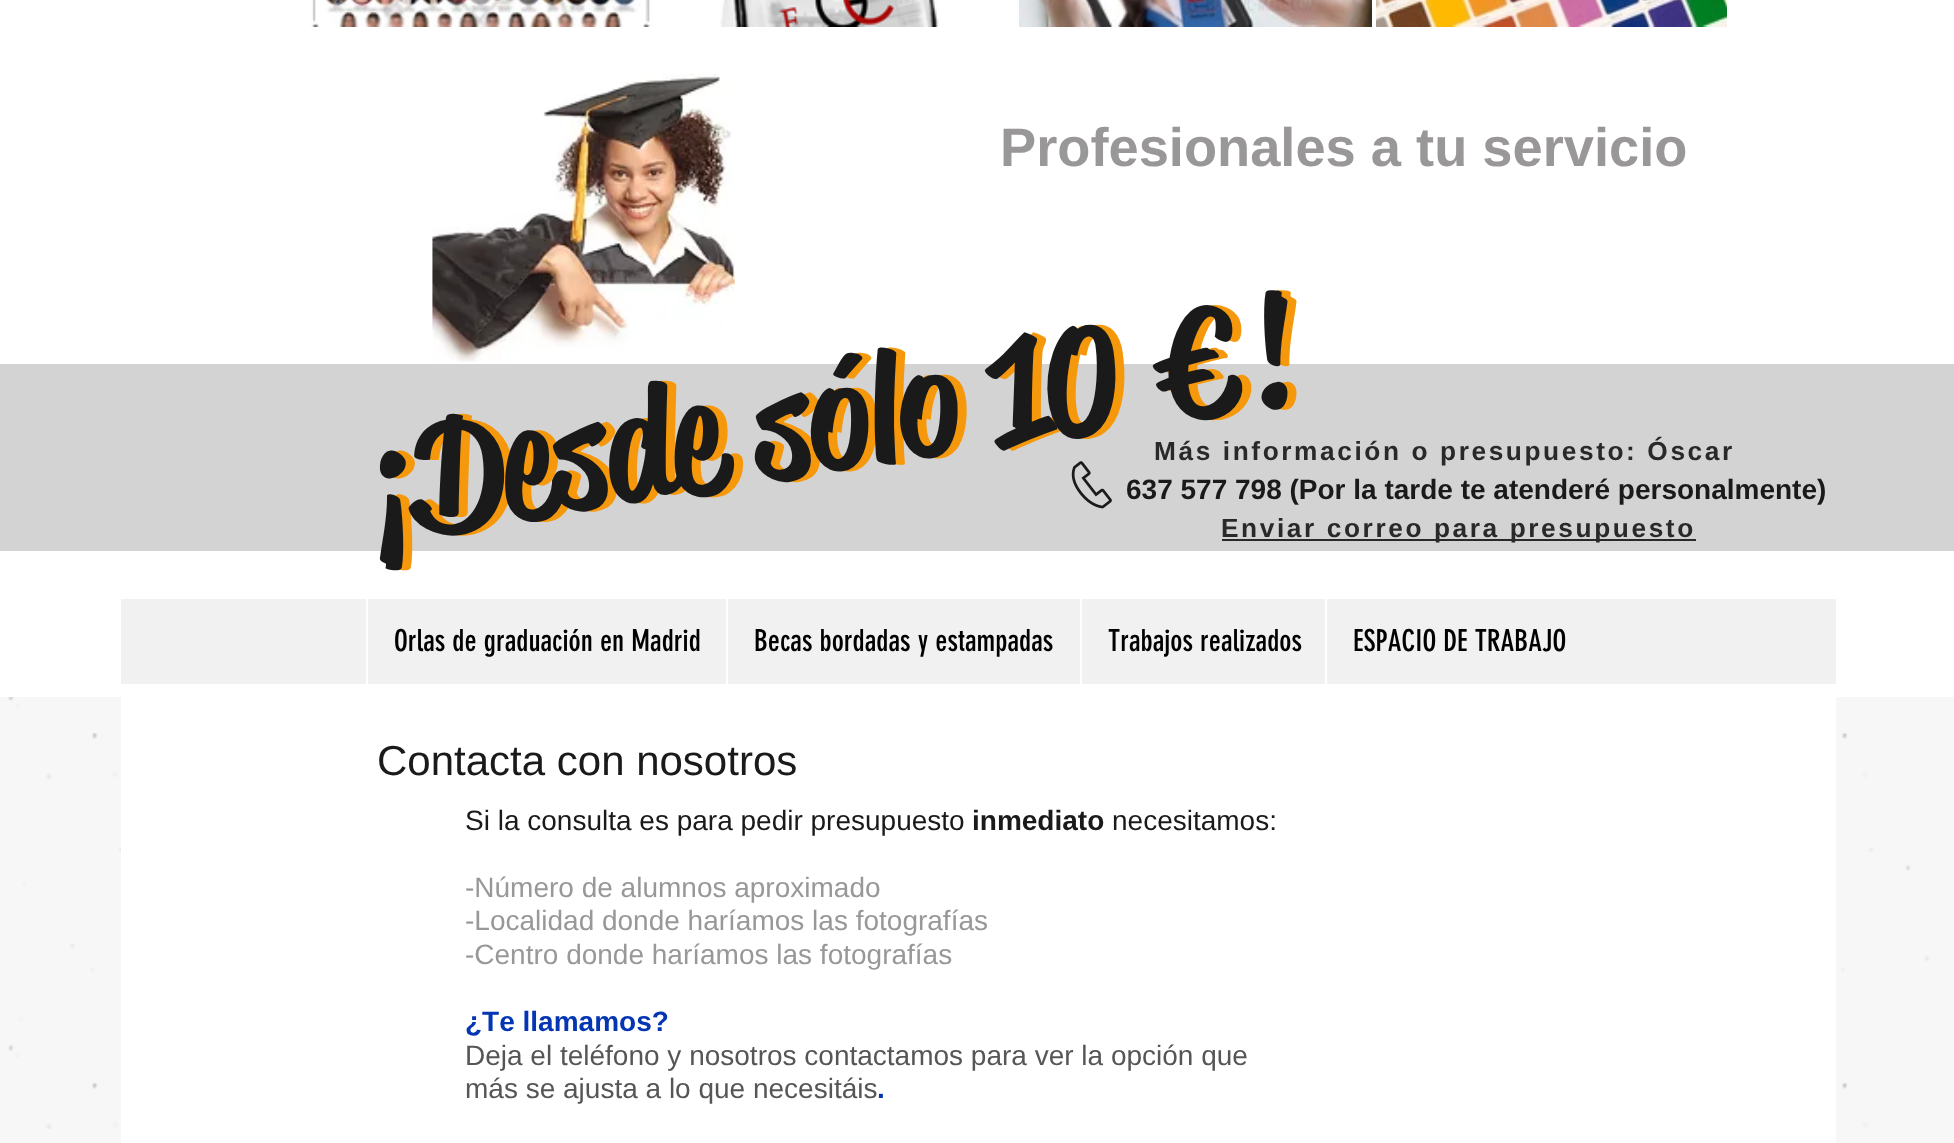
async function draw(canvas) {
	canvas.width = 1954;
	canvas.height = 1143;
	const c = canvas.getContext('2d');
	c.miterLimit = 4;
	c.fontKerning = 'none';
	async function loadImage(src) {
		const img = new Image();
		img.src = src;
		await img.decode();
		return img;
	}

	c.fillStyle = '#f7f7f7';
	c.fillRect(0, 0, 1954, 1143);
	c.fillStyle = '#fff';
	c.fillRect(0, 0, 1954, 697);
	c.drawImage(await loadImage('img1.png'), 305, 0, 353, 27);
	c.drawImage(await loadImage('img2.png'), 720, 0, 219, 27);
	c.drawImage(await loadImage('img3.png'), 1019, 0, 353, 27);
	c.drawImage(await loadImage('img4.png'), 1376, 0, 351, 27);
	c.drawImage(await loadImage('img5.png'), 432, 73, 303, 289);
	c.font = 'bold 54.25px Liberation Sans';
	c.fillStyle = '#999797';
	c.fillText('Profesionales a tu servicio', 1000, 166);
	c.fillStyle = '#d4d3d3';
	c.fillRect(0, 364, 1954, 187);
	c.letterSpacing = '2.6px';
	c.font = 'bold 26.25px Liberation Sans';
	c.fillStyle = '#292929';
	c.fillText('Más información o presupuesto: Óscar', 1154, 460);
	c.drawImage(await loadImage('img6.png'), 1071, 461, 41, 48);
	c.letterSpacing = '0px';
	c.font = 'bold 28px Liberation Sans';
	c.fillStyle = '#1a1a1a';
	c.fillText('637 577 798 (Por la tarde te atenderé personalmente)', 1126, 499);
	c.fillStyle = '#292929';
	c.fillRect(1222, 539, 474, 2);
	c.letterSpacing = '2.6px';
	c.font = 'bold 26.25px Liberation Sans';
	c.fillText('Enviar correo para presupuesto', 1221, 537);
	c.letterSpacing = '0px';
	c.font = '500 148.75px "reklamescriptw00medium"';
	c.fillStyle = '#f5980c';
	c.save();
	c.translate(376, 535);
	c.rotate(-8.3 * Math.PI / 180);
	c.fillText('¡Desde sólo 10 €!', 0, 0);
	c.restore();
	c.fillStyle = '#f1f1f1';
	c.fillRect(121, 599, 1715, 85);
	c.fillStyle = '#fff';
	c.fillRect(366, 599, 2, 85);
	c.font = '29.75px "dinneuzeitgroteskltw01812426"';
	c.fillStyle = '#000';
	c.fillText('Orlas de graduación en Madrid', 394, 651);
	c.fillStyle = '#fff';
	c.fillRect(726, 599, 2, 85);
	c.fillStyle = '#000';
	c.fillText('Becas bordadas y estampadas', 754, 651);
	c.fillStyle = '#fff';
	c.fillRect(1080, 599, 2, 85);
	c.fillStyle = '#000';
	c.fillText('Trabajos realizados', 1108, 651);
	c.fillStyle = '#fff';
	c.fillRect(1325, 599, 2, 85);
	c.fillStyle = '#000';
	c.fillText('ESPACIO DE TRABAJO', 1353, 651);
	c.font = '500 148.75px "reklamescriptw00medium"';
	c.fillStyle = '#1a1a1a';
	c.save();
	c.translate(367, 535);
	c.rotate(-8.3 * Math.PI / 180);
	c.fillText('¡Desde sólo 10 €!', 0, 0);
	c.restore();
	c.drawImage(await loadImage('img7.png'), 8, 697, 1922, 432);
	c.fillStyle = '#fff';
	c.fillRect(121, 697, 1715, 446);
	c.font = '42px Liberation Sans';
	c.fillStyle = '#1a1a1a';
	c.fillText('Contacta con nosotros', 377, 775);
	c.font = '28px Liberation Sans';
	c.fillText('Si la consulta es para pedir presupuesto', 465, 830);
	c.font = 'bold 28px Liberation Sans';
	c.fillText('inmediato', 972, 830);
	c.font = '28px Liberation Sans';
	c.fillText('necesitamos:', 1112, 830);
	c.fillStyle = '#999797';
	for (const [text, x, y] of [
		['-Número de alumnos aproximado', 465, 897],
		['-Localidad donde haríamos las fotografías', 465, 930],
		['-Centro donde haríamos las fotografías', 465, 964],
	]) {
		c.fillText(text, x, y);
	}
	c.font = 'bold 28px Liberation Sans';
	c.fillStyle = '#0435b3';
	c.fillText('¿Te llamamos?', 465, 1031);
	c.font = '28px Liberation Sans';
	c.fillStyle = '#565656';
	c.fillText('Deja el teléfono y nosotros contactamos para ver la opción que', 465, 1065);
	c.fillText('más se ajusta a lo que necesitáis', 465, 1098);
	c.font = 'bold 28px Liberation Sans';
	c.fillStyle = '#0435b3';
	c.fillText('.', 877, 1098);
}

draw(document.querySelector('canvas'));
